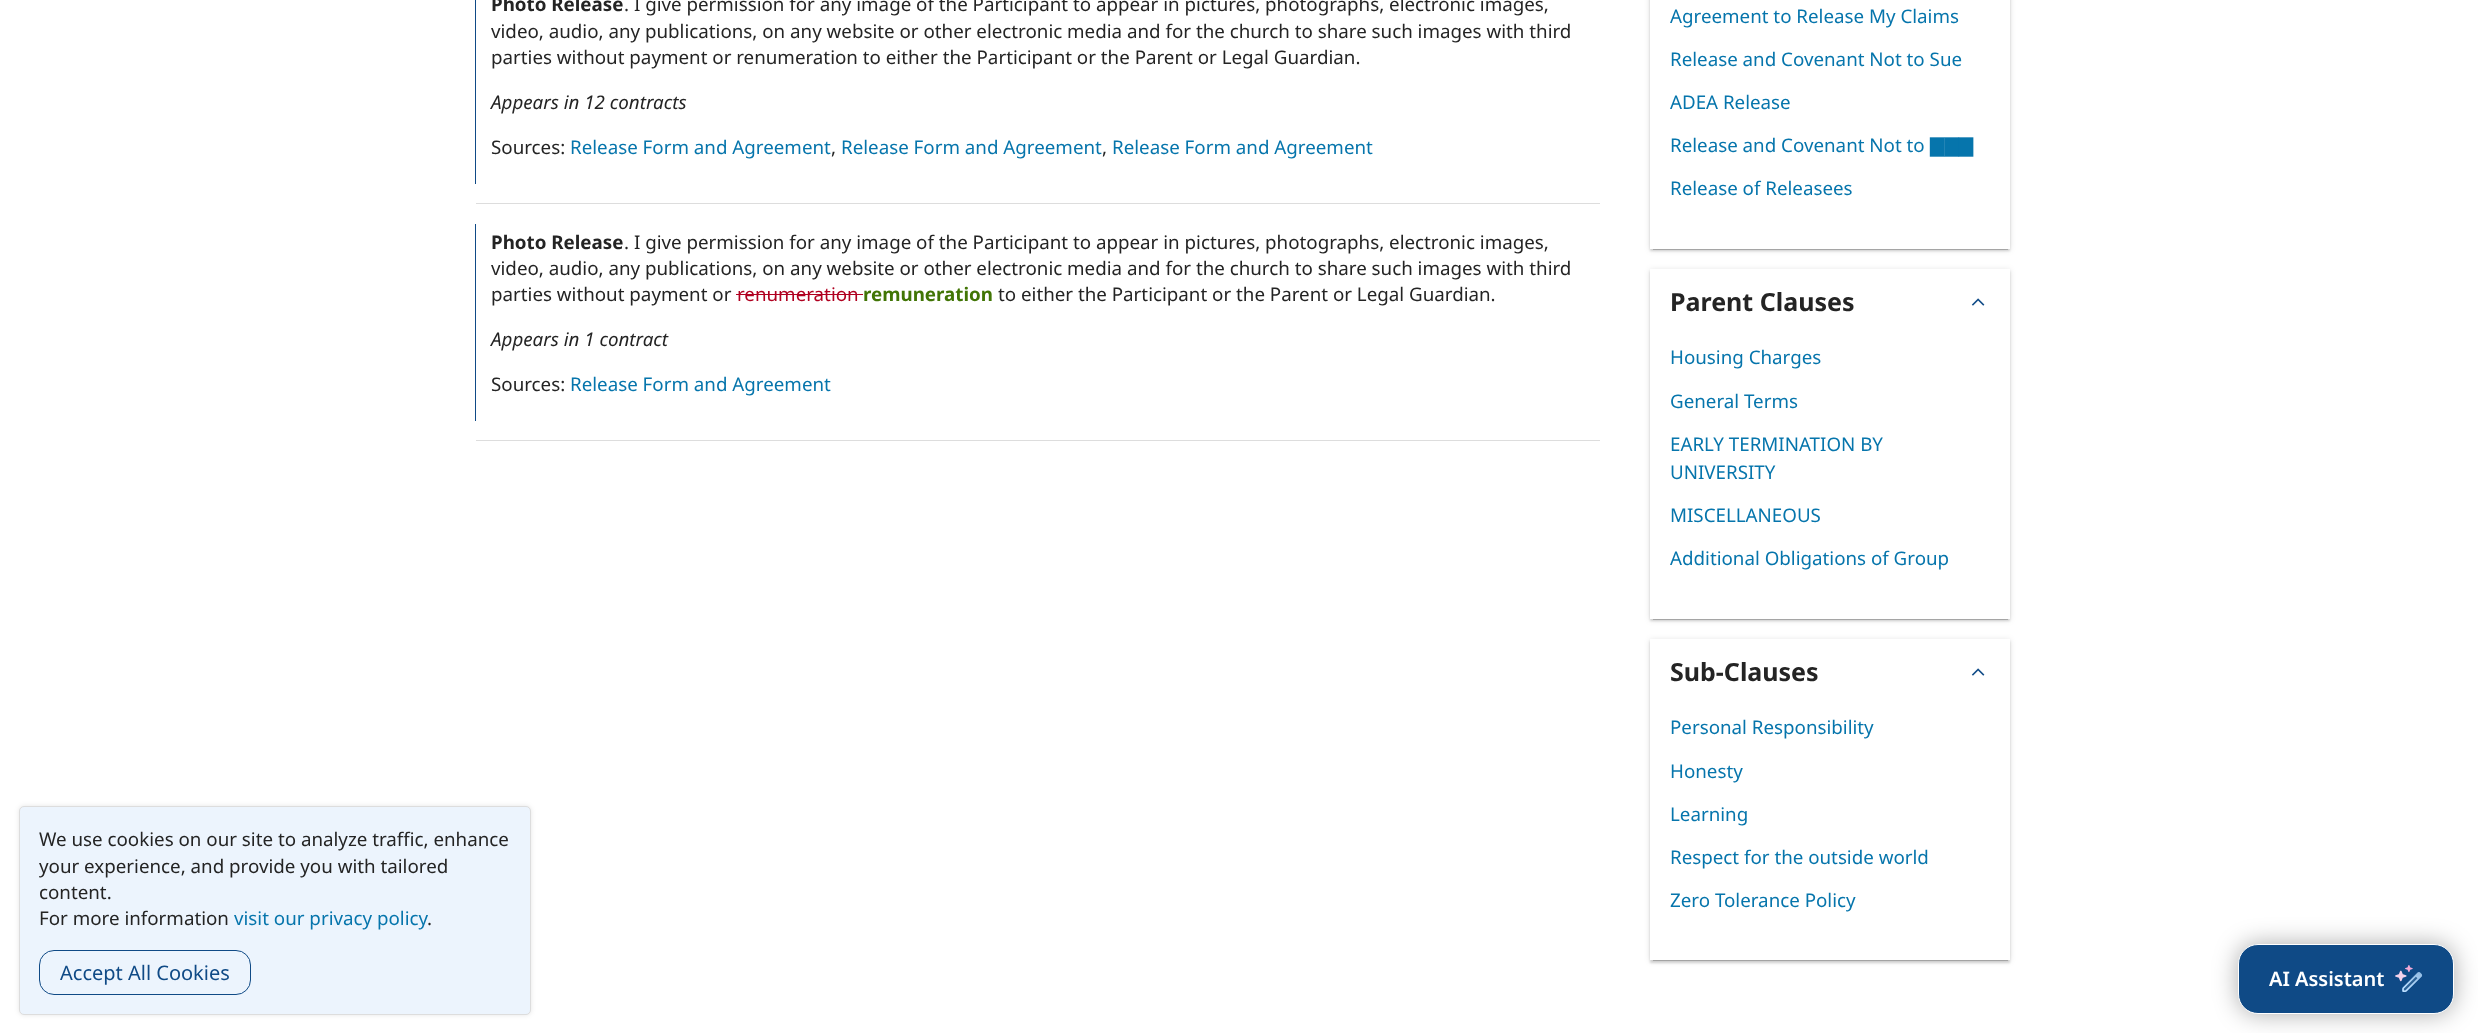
async function draw(canvas) {
	canvas.width = 2478;
	canvas.height = 1033;
	const c = canvas.getContext('2d');
	c.miterLimit = 4;
	c.fontKerning = 'normal';
	async function loadImage(src) {
		const img = new Image();
		img.src = src;
		await img.decode();
		return img;
	}

	c.fillStyle = '#fff';
	c.fillRect(0, 0, 2478, 1033);
	c.fillStyle = '#0000001a';
	c.filter = 'blur(2.5px)';
	c.beginPath();
	c.roundRect(19, 806, 512, 209, 5);
	c.fill();
	c.filter = 'none';
	c.fillStyle = '#ecf4fd';
	c.beginPath();
	c.roundRect(19.5, 806.5, 511, 208, 4.5);
	c.fill();
	c.strokeStyle = '#ddd';
	c.stroke();
	c.font = '18.75px Noto Sans';
	c.fillStyle = '#242424';
	for (const [text, x, y] of [
		['We use cookies on our site to analyze traffic, enhance', 39, 846],
		['your experience, and provide you with tailored', 39, 873],
		['content.', 39, 899],
		['For more information', 39, 925],
	]) {
		c.fillText(text, x, y);
	}
	c.fillStyle = '#0675ac';
	c.fillText('visit our privacy policy', 234, 925);
	c.fillStyle = '#242424';
	c.fillText('.', 427, 925);
	c.beginPath();
	c.roundRect(39.5, 950.5, 211, 44, 14.5);
	c.strokeStyle = '#0f4a86';
	c.stroke();
	c.font = '20px Noto Sans';
	c.fillStyle = '#0f4a86';
	c.fillText('Accept All Cookies', 60, 980);
	c.fillRect(475, 0, 1, 184);
	c.font = 'bold 18.75px Noto Sans';
	c.fillStyle = '#242424';
	c.fillText('Photo Release', 491, 11);
	c.font = '18.75px Noto Sans';
	for (const [text, x, y] of [
		['. I give permission for any image of the Participant to appear in pictures, photographs, electronic images,', 624, 11],
		['video, audio, any publications, on any website or other electronic media and for the church to share such images with third', 491, 38],
		['parties without payment or renumeration to either the Participant or the Parent or Legal Guardian.', 491, 64],
	]) {
		c.fillText(text, x, y);
	}
	c.font = 'italic 18.75px Noto Sans';
	c.fillText('Appears in 12 contracts', 491, 109);
	c.font = '18.75px Noto Sans';
	c.fillText('Sources:', 491, 154);
	c.fillStyle = '#0675ac';
	c.fillText('Release Form and Agreement', 570, 154);
	c.fillStyle = '#242424';
	c.fillText(',', 831, 154);
	c.fillStyle = '#0675ac';
	c.fillText('Release Form and Agreement', 841, 154);
	c.fillStyle = '#242424';
	c.fillText(',', 1102, 154);
	c.fillStyle = '#0675ac';
	c.fillText('Release Form and Agreement', 1112, 154);
	c.fillStyle = '#ddd';
	c.fillRect(476, 203, 1124, 1);
	c.fillStyle = '#0f4a86';
	c.fillRect(475, 224, 1, 197);
	c.font = 'bold 18.75px Noto Sans';
	c.fillStyle = '#242424';
	c.fillText('Photo Release', 491, 249);
	c.font = '18.75px Noto Sans';
	for (const [text, x, y] of [
		['. I give permission for any image of the Participant to appear in pictures, photographs, electronic images,', 624, 249],
		['video, audio, any publications, on any website or other electronic media and for the church to share such images with third', 491, 275],
		['parties without payment or', 491, 301],
	]) {
		c.fillText(text, x, y);
	}
	c.fillStyle = '#b00020';
	c.fillText('renumeration', 737, 301);
	c.fillRect(736, 294, 127, 1);
	c.font = 'bold 18.75px Noto Sans';
	c.fillStyle = '#417505';
	c.fillText('remuneration', 863, 301);
	c.font = '18.75px Noto Sans';
	c.fillStyle = '#242424';
	c.fillText('to either the Participant or the Parent or Legal Guardian.', 998, 301);
	c.font = 'italic 18.75px Noto Sans';
	c.fillText('Appears in 1 contract', 491, 346);
	c.font = '18.75px Noto Sans';
	c.fillText('Sources:', 491, 391);
	c.fillStyle = '#0675ac';
	c.fillText('Release Form and Agreement', 570, 391);
	c.fillStyle = '#ddd';
	c.fillRect(476, 440, 1124, 1);
	c.save();
	c.beginPath();
	c.moveTo(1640, 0);
	c.lineTo(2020, 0);
	c.lineTo(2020, 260);
	c.lineTo(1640, 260);
	c.closePath();
	c.moveTo(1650, -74);
	c.lineTo(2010, -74);
	c.lineTo(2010, 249);
	c.lineTo(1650, 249);
	c.closePath();
	c.clip('evenodd');
	c.fillStyle = '#0000001f';
	c.filter = 'blur(3px)';
	c.beginPath();
	c.rect(1650, -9, 360, 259);
	c.fill();
	c.filter = 'none';
	c.restore();
	c.save();
	c.beginPath();
	c.moveTo(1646, 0);
	c.lineTo(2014, 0);
	c.lineTo(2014, 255);
	c.lineTo(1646, 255);
	c.closePath();
	c.moveTo(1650, -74);
	c.lineTo(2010, -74);
	c.lineTo(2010, 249);
	c.lineTo(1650, 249);
	c.closePath();
	c.clip('evenodd');
	c.fillStyle = '#00000024';
	c.filter = 'blur(1px)';
	c.beginPath();
	c.rect(1650, -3, 360, 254);
	c.fill();
	c.filter = 'none';
	c.restore();
	c.save();
	c.beginPath();
	c.moveTo(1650, 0);
	c.lineTo(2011, 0);
	c.lineTo(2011, 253);
	c.lineTo(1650, 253);
	c.closePath();
	c.moveTo(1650, -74);
	c.lineTo(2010, -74);
	c.lineTo(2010, 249);
	c.lineTo(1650, 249);
	c.closePath();
	c.clip('evenodd');
	c.fillStyle = '#00000033';
	c.filter = 'blur(0.5px)';
	c.beginPath();
	c.rect(1653, -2, 355, 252);
	c.fill();
	c.filter = 'none';
	c.restore();
	c.fillStyle = '#0675ac';
	for (const [text, x, y] of [
		['Agreement to Release My Claims', 1670, 23],
		['Release and Covenant Not to Sue', 1670, 66],
		['ADEA Release', 1670, 109],
		['Release and Covenant Not to', 1670, 152],
	]) {
		c.fillText(text, x, y);
	}
	c.font = '18.75px DejaVu Sans';
	c.fillText('▇▇▇', 1930, 152);
	c.font = '18.75px Noto Sans';
	c.fillText('Release of Releasees', 1670, 195);
	c.save();
	c.beginPath();
	c.moveTo(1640, 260);
	c.lineTo(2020, 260);
	c.lineTo(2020, 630);
	c.lineTo(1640, 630);
	c.closePath();
	c.moveTo(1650, 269);
	c.lineTo(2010, 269);
	c.lineTo(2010, 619);
	c.lineTo(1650, 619);
	c.closePath();
	c.clip('evenodd');
	c.fillStyle = '#0000001f';
	c.filter = 'blur(3px)';
	c.beginPath();
	c.rect(1650, 270, 360, 350);
	c.fill();
	c.filter = 'none';
	c.restore();
	c.save();
	c.beginPath();
	c.moveTo(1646, 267);
	c.lineTo(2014, 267);
	c.lineTo(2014, 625);
	c.lineTo(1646, 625);
	c.closePath();
	c.moveTo(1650, 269);
	c.lineTo(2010, 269);
	c.lineTo(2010, 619);
	c.lineTo(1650, 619);
	c.closePath();
	c.clip('evenodd');
	c.fillStyle = '#00000024';
	c.filter = 'blur(1px)';
	c.beginPath();
	c.rect(1650, 271, 360, 350);
	c.fill();
	c.filter = 'none';
	c.restore();
	c.save();
	c.beginPath();
	c.moveTo(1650, 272);
	c.lineTo(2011, 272);
	c.lineTo(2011, 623);
	c.lineTo(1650, 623);
	c.closePath();
	c.moveTo(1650, 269);
	c.lineTo(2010, 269);
	c.lineTo(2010, 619);
	c.lineTo(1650, 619);
	c.closePath();
	c.clip('evenodd');
	c.fillStyle = '#00000033';
	c.filter = 'blur(0.5px)';
	c.beginPath();
	c.rect(1653, 275, 355, 345);
	c.fill();
	c.filter = 'none';
	c.restore();
	c.font = 'bold 25px Noto Sans';
	c.fillStyle = '#242424';
	c.fillText('Parent Clauses', 1670, 311);
	c.drawImage(await loadImage('img1.png'), 1971, 298, 14, 8);
	c.font = '18.75px Noto Sans';
	c.fillStyle = '#0675ac';
	for (const [text, x, y] of [
		['Housing Charges', 1670, 364],
		['General Terms', 1670, 408],
		['EARLY TERMINATION BY', 1670, 451],
		['UNIVERSITY', 1670, 479],
		['MISCELLANEOUS', 1670, 522],
		['Additional Obligations of Group', 1670, 565],
	]) {
		c.fillText(text, x, y);
	}
	c.save();
	c.beginPath();
	c.moveTo(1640, 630);
	c.lineTo(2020, 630);
	c.lineTo(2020, 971);
	c.lineTo(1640, 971);
	c.closePath();
	c.moveTo(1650, 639);
	c.lineTo(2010, 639);
	c.lineTo(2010, 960);
	c.lineTo(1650, 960);
	c.closePath();
	c.clip('evenodd');
	c.fillStyle = '#0000001f';
	c.filter = 'blur(3px)';
	c.beginPath();
	c.rect(1650, 640, 360, 321);
	c.fill();
	c.filter = 'none';
	c.restore();
	c.save();
	c.beginPath();
	c.moveTo(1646, 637);
	c.lineTo(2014, 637);
	c.lineTo(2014, 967);
	c.lineTo(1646, 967);
	c.closePath();
	c.moveTo(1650, 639);
	c.lineTo(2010, 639);
	c.lineTo(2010, 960);
	c.lineTo(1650, 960);
	c.closePath();
	c.clip('evenodd');
	c.fillStyle = '#00000024';
	c.filter = 'blur(1px)';
	c.beginPath();
	c.rect(1650, 641, 360, 322);
	c.fill();
	c.filter = 'none';
	c.restore();
	c.save();
	c.beginPath();
	c.rect(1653, 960, 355, 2);
	c.clip();
	c.fillStyle = '#00000033';
	c.filter = 'blur(0.5px)';
	c.beginPath();
	c.rect(1653, 645, 355, 316);
	c.fill();
	c.filter = 'none';
	c.restore();
	c.font = 'bold 25px Noto Sans';
	c.fillStyle = '#242424';
	c.fillText('Sub-Clauses', 1670, 681);
	c.drawImage(await loadImage('img1.png'), 1971, 668, 14, 8);
	c.font = '18.75px Noto Sans';
	c.fillStyle = '#0675ac';
	for (const [text, x, y] of [
		['Personal Responsibility', 1670, 734],
		['Honesty', 1670, 778],
		['Learning', 1670, 821],
		['Respect for the outside world', 1670, 864],
		['Zero Tolerance Policy', 1670, 907],
	]) {
		c.fillText(text, x, y);
	}
	c.fillStyle = '#00000054';
	c.filter = 'blur(12.5px)';
	c.beginPath();
	c.roundRect(2238, 944, 216, 70, 20);
	c.fill();
	c.filter = 'none';
	c.fillStyle = '#0f4a86';
	c.beginPath();
	c.roundRect(2238.5, 944.5, 215, 69, 19.5);
	c.fill();
	c.strokeStyle = '#fff';
	c.stroke();
	c.font = '600 20px Noto Sans';
	c.fillStyle = '#fff';
	c.fillText('AI Assistant', 2269, 986);
	c.drawImage(await loadImage('img2.png'), 2395, 965, 28, 27);
}

draw(document.querySelector('canvas'));
